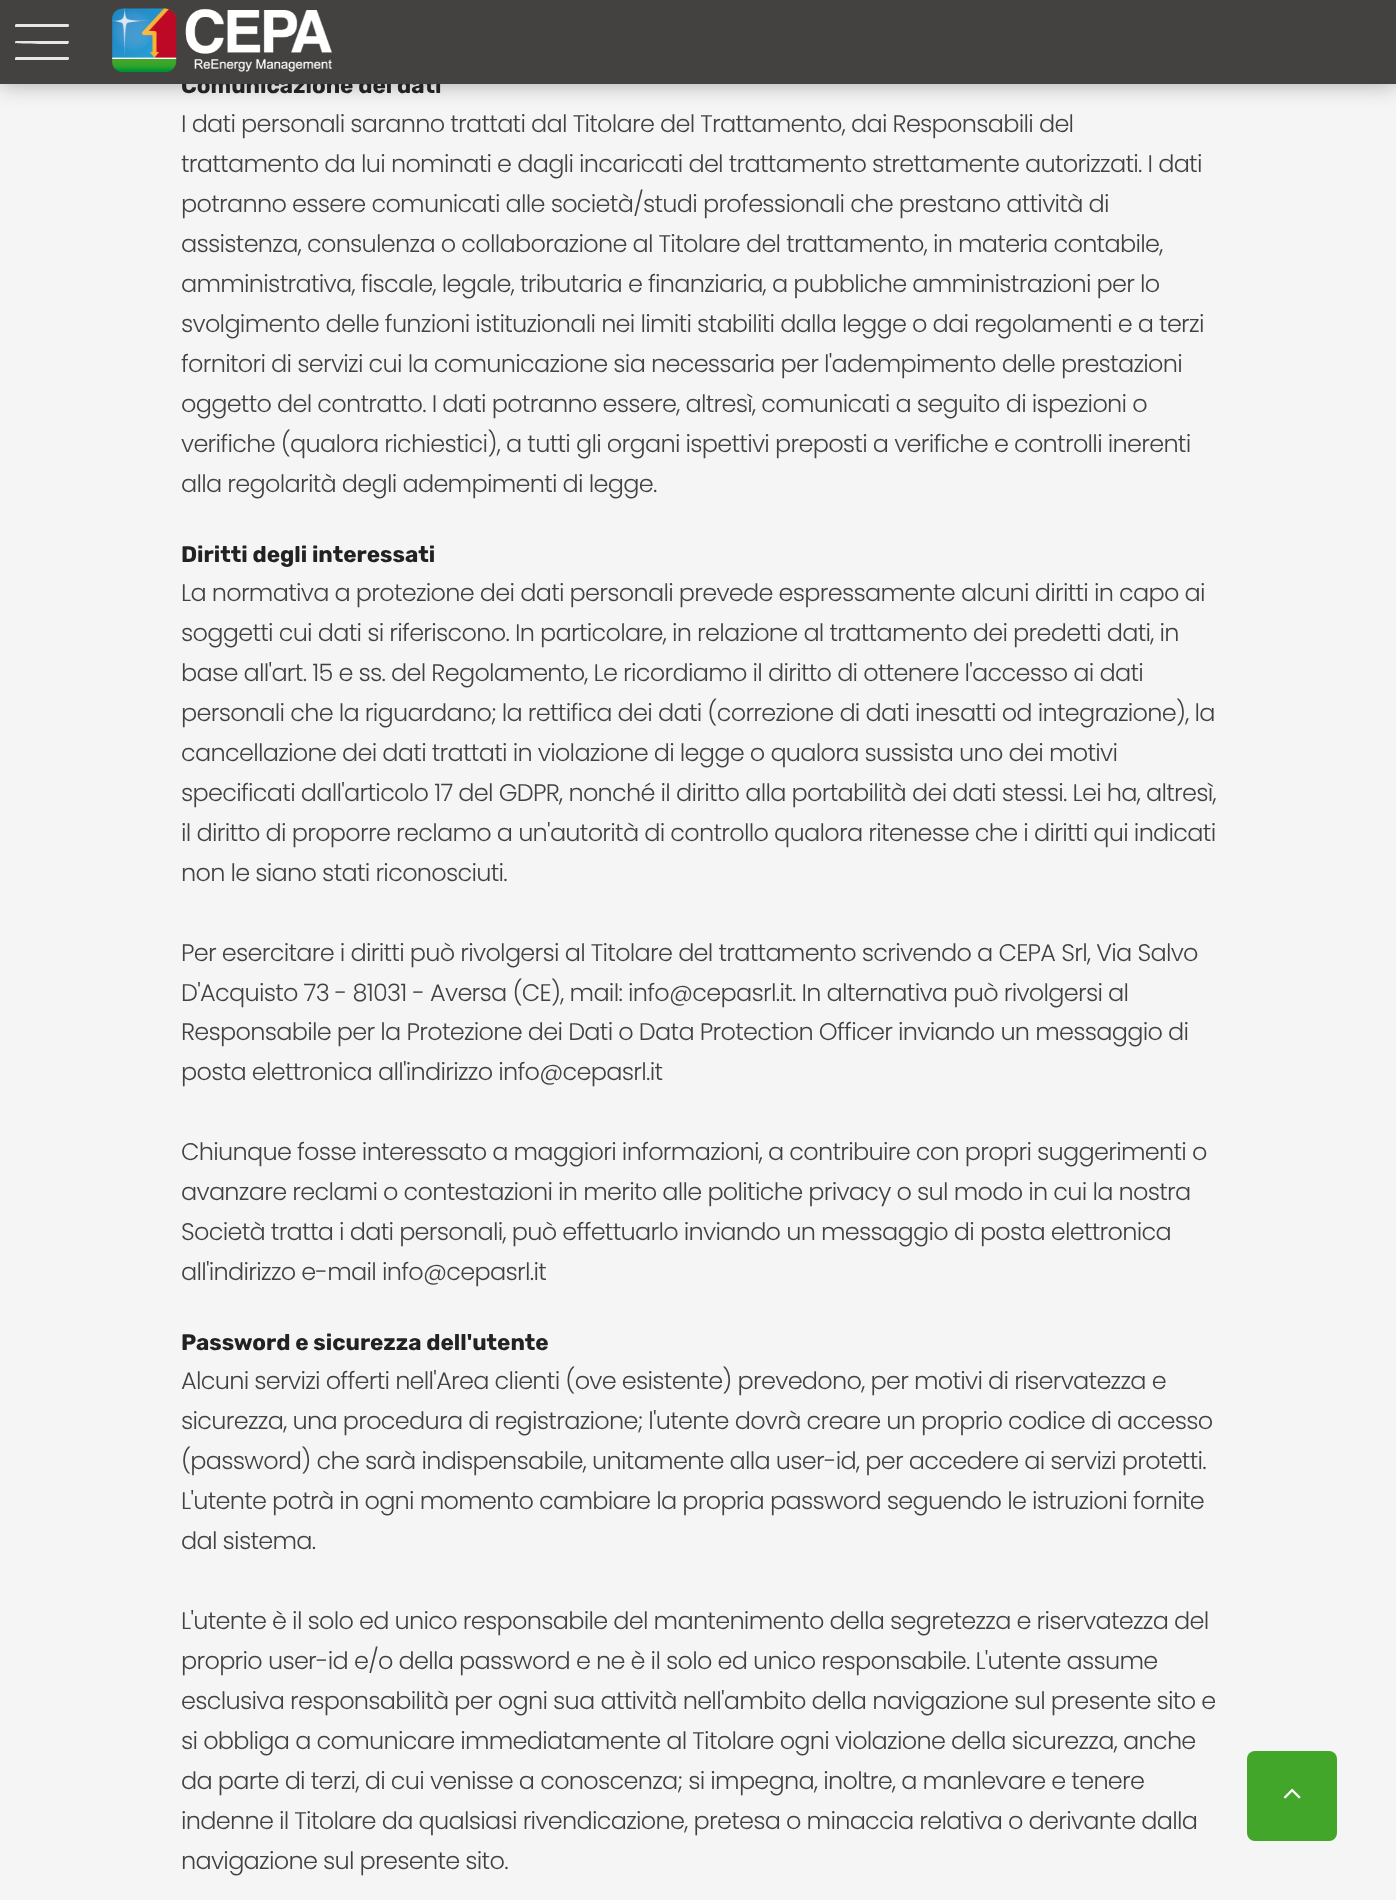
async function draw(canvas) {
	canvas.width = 1396;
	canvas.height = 1900;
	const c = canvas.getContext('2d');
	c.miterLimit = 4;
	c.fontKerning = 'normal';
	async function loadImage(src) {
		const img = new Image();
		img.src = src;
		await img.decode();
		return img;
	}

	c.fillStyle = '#f5f5f5';
	c.fillRect(0, 0, 1396, 1900);
	c.fillStyle = '#15151559';
	c.filter = 'blur(11px)';
	c.beginPath();
	c.rect(0, 0, 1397, 84);
	c.fill();
	c.filter = 'none';
	c.font = 'bold 22.5px Rubik';
	c.fillStyle = '#222';
	c.fillText('Comunicazione dei dati', 181, 93);
	c.fillStyle = '#444141';
	c.fillRect(0, 0, 1396, 84);
	c.fillStyle = '#e7e7e7';
	c.beginPath();
	c.moveTo(68, 44);
	c.bezierCurveTo(62, 44, 16, 44, 15, 43);
	c.bezierCurveTo(15, 42, 15, 41, 16, 41);
	c.lineTo(68, 41);
	c.bezierCurveTo(69, 41, 69, 42, 69, 42);
	c.closePath();
	c.moveTo(68, 60);
	c.bezierCurveTo(62, 60, 16, 60, 15, 60);
	c.bezierCurveTo(15, 59, 15, 57, 16, 57);
	c.lineTo(68, 57);
	c.bezierCurveTo(69, 57, 69, 58, 69, 59);
	c.closePath();
	c.moveTo(68, 27);
	c.bezierCurveTo(62, 27, 16, 27, 15, 27);
	c.bezierCurveTo(15, 26, 15, 24, 16, 24);
	c.lineTo(68, 24);
	c.bezierCurveTo(69, 24, 69, 25, 69, 26);
	c.closePath();
	c.fill();
	c.drawImage(await loadImage('img1.png'), 111, 8, 221, 65);
	c.letterSpacing = '-0.72px';
	c.font = '300 24px Poppins';
	c.fillStyle = '#424242';
	for (const [text, x, y] of [
		['I dati personali saranno trattati dal Titolare del Trattamento, dai Responsabili del', 181, 132],
		['trattamento da lui nominati e dagli incaricati del trattamento strettamente autorizzati. I dati', 181, 172],
		['potranno essere comunicati alle società/studi professionali che prestano attività di', 181, 212],
		['assistenza, consulenza o collaborazione al Titolare del trattamento, in materia contabile,', 181, 252],
		['amministrativa, fiscale, legale, tributaria e finanziaria, a pubbliche amministrazioni per lo', 181, 292],
		['svolgimento delle funzioni istituzionali nei limiti stabiliti dalla legge o dai regolamenti e a terzi', 181, 332],
		['fornitori di servizi cui la comunicazione sia necessaria per l\'adempimento delle prestazioni', 181, 372],
		['oggetto del contratto. I dati potranno essere, altresì, comunicati a seguito di ispezioni o', 181, 412],
		['verifiche (qualora richiestici), a tutti gli organi ispettivi preposti a verifiche e controlli inerenti', 181, 452],
		['alla regolarità degli adempimenti di legge.', 181, 492],
	]) {
		c.fillText(text, x, y);
	}
	c.letterSpacing = '0px';
	c.font = 'bold 22.5px Rubik';
	c.fillStyle = '#222';
	c.fillText('Diritti degli interessati', 181, 562);
	c.letterSpacing = '-0.72px';
	c.font = '300 24px Poppins';
	c.fillStyle = '#424242';
	for (const [text, x, y] of [
		['La normativa a protezione dei dati personali prevede espressamente alcuni diritti in capo ai', 181, 601],
		['soggetti cui dati si riferiscono. In particolare, in relazione al trattamento dei predetti dati, in', 181, 641],
		['base all\'art. 15 e ss. del Regolamento, Le ricordiamo il diritto di ottenere l\'accesso ai dati', 181, 681],
		['personali che la riguardano; la rettifica dei dati (correzione di dati inesatti od integrazione), la', 181, 721],
		['cancellazione dei dati trattati in violazione di legge o qualora sussista uno dei motivi', 181, 761],
		['specificati dall\'articolo 17 del GDPR, nonché il diritto alla portabilità dei dati stessi. Lei ha, altresì,', 181, 801],
		['il diritto di proporre reclamo a un\'autorità di controllo qualora ritenesse che i diritti qui indicati', 181, 841],
		['non le siano stati riconosciuti.', 181, 881],
		['Per esercitare i diritti può rivolgersi al Titolare del trattamento scrivendo a CEPA Srl, Via Salvo', 181, 961],
		['D\'Acquisto 73 - 81031 - Aversa (CE), mail: info@cepasrl.it. In alternativa può rivolgersi al', 181, 1001],
		['Responsabile per la Protezione dei Dati o Data Protection Officer inviando un messaggio di', 181, 1040],
		['posta elettronica all\'indirizzo info@cepasrl.it', 181, 1080],
		['Chiunque fosse interessato a maggiori informazioni, a contribuire con propri suggerimenti o', 181, 1160],
		['avanzare reclami o contestazioni in merito alle politiche privacy o sul modo in cui la nostra', 181, 1200],
		['Società tratta i dati personali, può effettuarlo inviando un messaggio di posta elettronica', 181, 1240],
		['all\'indirizzo e-mail info@cepasrl.it', 181, 1280],
	]) {
		c.fillText(text, x, y);
	}
	c.letterSpacing = '0px';
	c.font = 'bold 22.5px Rubik';
	c.fillStyle = '#222';
	c.fillText('Password e sicurezza dell\'utente', 181, 1350);
	c.letterSpacing = '-0.72px';
	c.font = '300 24px Poppins';
	c.fillStyle = '#424242';
	for (const [text, x, y] of [
		['Alcuni servizi offerti nell\'Area clienti (ove esistente) prevedono, per motivi di riservatezza e', 181, 1389],
		['sicurezza, una procedura di registrazione; l\'utente dovrà creare un proprio codice di accesso', 181, 1429],
		['(password) che sarà indispensabile, unitamente alla user-id, per accedere ai servizi protetti.', 181, 1469],
		['L\'utente potrà in ogni momento cambiare la propria password seguendo le istruzioni fornite', 181, 1509],
		['dal sistema.', 181, 1549],
		['L\'utente è il solo ed unico responsabile del mantenimento della segretezza e riservatezza del', 181, 1629],
		['proprio user-id e/o della password e ne è il solo ed unico responsabile. L\'utente assume', 181, 1669],
		['esclusiva responsabilità per ogni sua attività nell\'ambito della navigazione sul presente sito e', 181, 1709],
		['si obbliga a comunicare immediatamente al Titolare ogni violazione della sicurezza, anche', 181, 1749],
		['da parte di terzi, di cui venisse a conoscenza; si impegna, inoltre, a manlevare e tenere', 181, 1789],
		['indenne il Titolare da qualsiasi rivendicazione, pretesa o minaccia relativa o derivante dalla', 181, 1829],
		['navigazione sul presente sito.', 181, 1869],
	]) {
		c.fillText(text, x, y);
	}
	c.fillStyle = '#41a62a';
	c.beginPath();
	c.roundRect(1247, 1751, 90, 90, 8);
	c.fill();
	c.drawImage(await loadImage('img2.png'), 1283, 1788, 18, 11);
}

draw(document.querySelector('canvas'));
